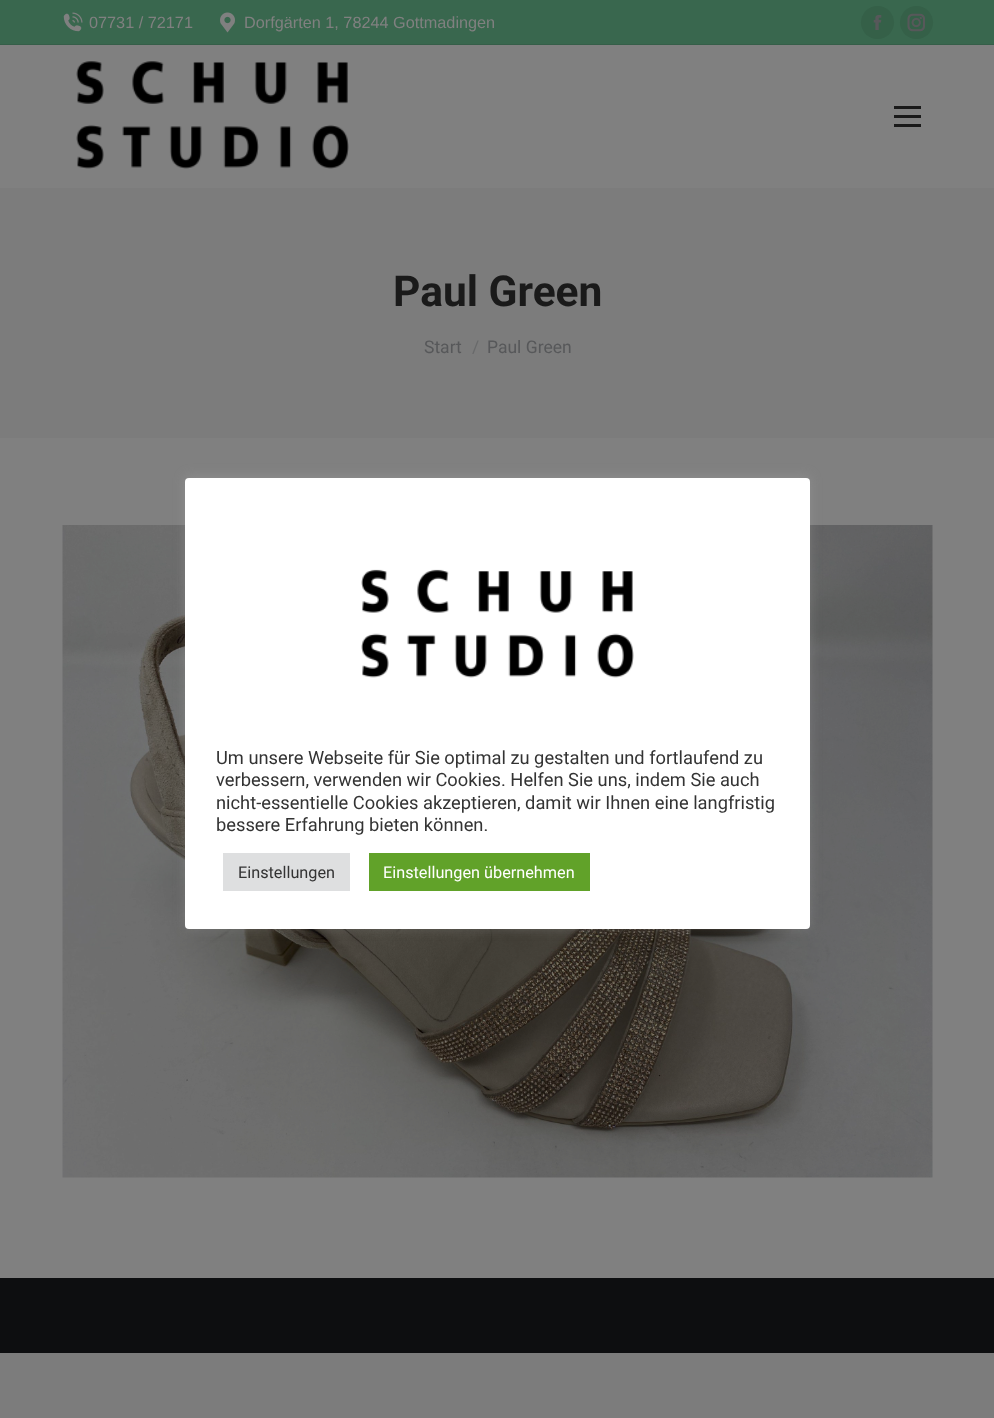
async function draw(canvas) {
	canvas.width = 994;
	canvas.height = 1418;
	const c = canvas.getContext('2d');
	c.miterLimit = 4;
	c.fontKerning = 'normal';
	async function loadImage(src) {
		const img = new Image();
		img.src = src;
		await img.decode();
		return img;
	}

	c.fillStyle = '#7c7c7c';
	c.fillRect(0, 0, 994, 1418);
	for (const [x, y, w, h, color] of [
		[0, 438, 994, 840, '#808080'],
		[0, 45, 994, 143, '#808080'],
		[0, 0, 994, 44, '#39674e'],
	]) {
		c.fillStyle = color;
		c.fillRect(x, y, w, h);
	}
	c.drawImage(await loadImage('img1.png'), 63, 12, 20, 20);
	c.font = '16.25px Liberation Sans';
	c.fillStyle = '#808080';
	c.fillText('07731 / 72171', 89, 28);
	c.drawImage(await loadImage('img2.png'), 220, 12, 15, 21);
	c.fillText('Dorfgärten 1, 78244 Gottmadingen', 244, 28);
	c.fillStyle = '#356048';
	c.beginPath();
	c.arc(877.5, 22.5, 16.5, 0, 2 * Math.PI);
	c.fill();
	c.drawImage(await loadImage('img3.png'), 873, 15, 9, 15);
	c.beginPath();
	c.arc(916.5, 22.5, 16.5, 0, 2 * Math.PI);
	c.fill();
	c.drawImage(await loadImage('img4.png'), 907, 13, 18, 19);
	c.fillStyle = '#355e48';
	c.fillRect(0, 44, 994, 1);
	c.drawImage(await loadImage('img5.png'), 76, 61, 273, 108);
	for (const [x, y, w, h, color] of [
		[894, 106, 27, 3, '#1a1a1a'],
		[894, 115, 27, 3, '#1a1a1a'],
		[894, 124, 27, 3, '#1a1a1a'],
	]) {
		c.fillStyle = color;
		c.fillRect(x, y, w, h);
	}
	c.font = 'bold 42.5px Roboto';
	c.fillText('Paul Green', 393, 306);
	c.font = '17.5px Roboto';
	c.fillStyle = '#57585a';
	c.fillText('Start', 424, 353);
	c.fillStyle = '#696a6b';
	c.fillText('/', 472, 353);
	c.fillStyle = '#57585a';
	c.fillText('Paul Green', 487, 353);
	c.drawImage(await loadImage('img6.png'), 62, 525, 871, 653);
	c.fillStyle = '#0d0e10';
	c.fillRect(0, 1278, 994, 75);
	c.fillStyle = '#acabab4d';
	c.filter = 'blur(6px)';
	c.beginPath();
	c.roundRect(185, 476, 625, 452, 4);
	c.fill();
	c.filter = 'none';
	c.fillStyle = '#fff';
	c.beginPath();
	c.roundRect(185, 478, 625, 451, 4);
	c.fill();
	c.drawImage(await loadImage('img7.png'), 361, 569, 273, 109);
	c.font = '18.3px Roboto';
	c.fillStyle = '#333';
	for (const [text, x, y] of [
		['Um unsere Webseite für Sie optimal zu gestalten und fortlaufend zu', 216, 764],
		['verbessern, verwenden wir Cookies. Helfen Sie uns, indem Sie auch', 216, 786],
		['nicht-essentielle Cookies akzeptieren, damit wir Ihnen eine langfristig', 216, 809],
		['bessere Erfahrung bieten können.', 216, 831],
	]) {
		c.fillText(text, x, y);
	}
	c.fillStyle = '#dedfe0';
	c.fillRect(223, 853, 127, 38);
	c.font = '16.25px Roboto';
	c.fillStyle = '#333';
	c.fillText('Einstellungen', 238, 878);
	c.fillStyle = '#61a229';
	c.fillRect(369, 853, 221, 38);
	c.fillStyle = '#fff';
	c.fillText('Einstellungen übernehmen', 383, 878);
}

draw(document.querySelector('canvas'));
